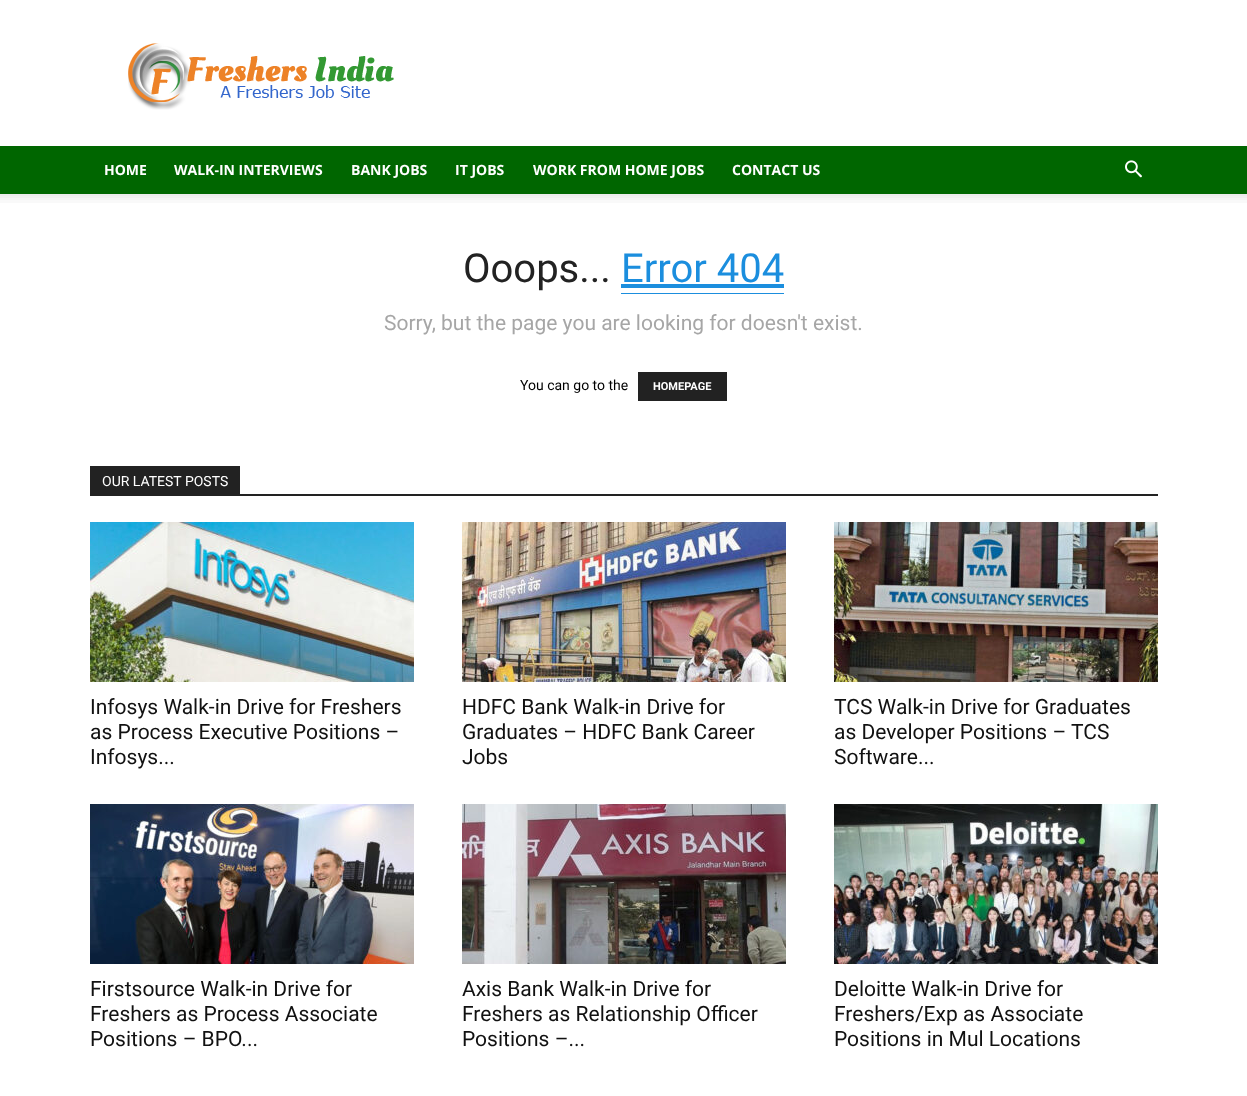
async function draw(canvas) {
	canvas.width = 1247;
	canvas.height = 1096;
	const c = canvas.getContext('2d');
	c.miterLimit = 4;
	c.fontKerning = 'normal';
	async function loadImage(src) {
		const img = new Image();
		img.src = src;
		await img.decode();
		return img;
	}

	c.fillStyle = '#fff';
	c.fillRect(0, 0, 1247, 1096);
	c.drawImage(await loadImage('img1.png'), 128, 43, 266, 67);
	c.fillStyle = '#060';
	c.fillRect(0, 146, 1247, 48);
	c.font = 'bold 14px Open Sans';
	c.fillStyle = '#fff';
	for (const [text, x, y] of [
		['HOME', 104, 175],
		['WALK-IN INTERVIEWS', 174, 175],
		['BANK JOBS', 351, 175],
		['IT JOBS', 455, 175],
		['WORK FROM HOME JOBS', 533, 175],
		['CONTACT US', 732, 175],
	]) {
		c.fillText(text, x, y);
	}
	c.drawImage(await loadImage('img2.png'), 1125, 160, 17, 18);
	c.drawImage(await loadImage('img3.png'), 0, 194, 1247, 9);
	c.font = '40px Roboto';
	c.fillStyle = '#222';
	c.fillText('Ooops...', 463, 282);
	c.fillStyle = '#1b8ede';
	c.fillText('Error 404', 621, 282);
	c.fillRect(621, 293, 163, 1);
	c.fillRect(621, 284, 163, 4);
	c.font = '21px Roboto';
	c.fillStyle = '#a6a6a6';
	c.fillText('Sorry, but the page you are looking for doesn\'t exist.', 384, 330);
	c.font = '14px Roboto';
	c.fillStyle = '#000';
	c.fillText('You can go to the', 520, 390);
	c.fillStyle = '#222';
	c.fillRect(638, 372, 89, 29);
	c.font = 'bold 11px Roboto';
	c.fillStyle = '#fff';
	c.fillText('HOMEPAGE', 653, 390);
	c.fillStyle = '#222';
	c.fillRect(90, 494, 1068, 2);
	c.fillRect(90, 466, 150, 28);
	c.font = '14px Roboto';
	c.fillStyle = '#fff';
	c.fillText('OUR LATEST POSTS', 102, 486);
	c.drawImage(await loadImage('img4.png'), 90, 522, 324, 160);
	c.font = '21px Roboto';
	c.fillStyle = '#111';
	for (const [text, x, y] of [
		['Infosys Walk-in Drive for Freshers', 90, 714],
		['as Process Executive Positions –', 90, 739],
		['Infosys...', 90, 764],
	]) {
		c.fillText(text, x, y);
	}
	c.drawImage(await loadImage('img5.png'), 462, 522, 324, 160);
	for (const [text, x, y] of [
		['HDFC Bank Walk-in Drive for', 462, 714],
		['Graduates – HDFC Bank Career', 462, 739],
		['Jobs', 462, 764],
	]) {
		c.fillText(text, x, y);
	}
	c.drawImage(await loadImage('img6.png'), 834, 522, 324, 160);
	for (const [text, x, y] of [
		['TCS Walk-in Drive for Graduates', 834, 714],
		['as Developer Positions – TCS', 834, 739],
		['Software...', 834, 764],
	]) {
		c.fillText(text, x, y);
	}
	c.drawImage(await loadImage('img7.png'), 90, 804, 324, 160);
	for (const [text, x, y] of [
		['Firstsource Walk-in Drive for', 90, 996],
		['Freshers as Process Associate', 90, 1021],
		['Positions – BPO...', 90, 1046],
	]) {
		c.fillText(text, x, y);
	}
	c.drawImage(await loadImage('img8.png'), 462, 804, 324, 160);
	for (const [text, x, y] of [
		['Axis Bank Walk-in Drive for', 462, 996],
		['Freshers as Relationship Officer', 462, 1021],
		['Positions –...', 462, 1046],
	]) {
		c.fillText(text, x, y);
	}
	c.drawImage(await loadImage('img9.png'), 834, 804, 324, 160);
	for (const [text, x, y] of [
		['Deloitte Walk-in Drive for', 834, 996],
		['Freshers/Exp as Associate', 834, 1021],
		['Positions in Mul Locations', 834, 1046],
	]) {
		c.fillText(text, x, y);
	}
}

draw(document.querySelector('canvas'));
